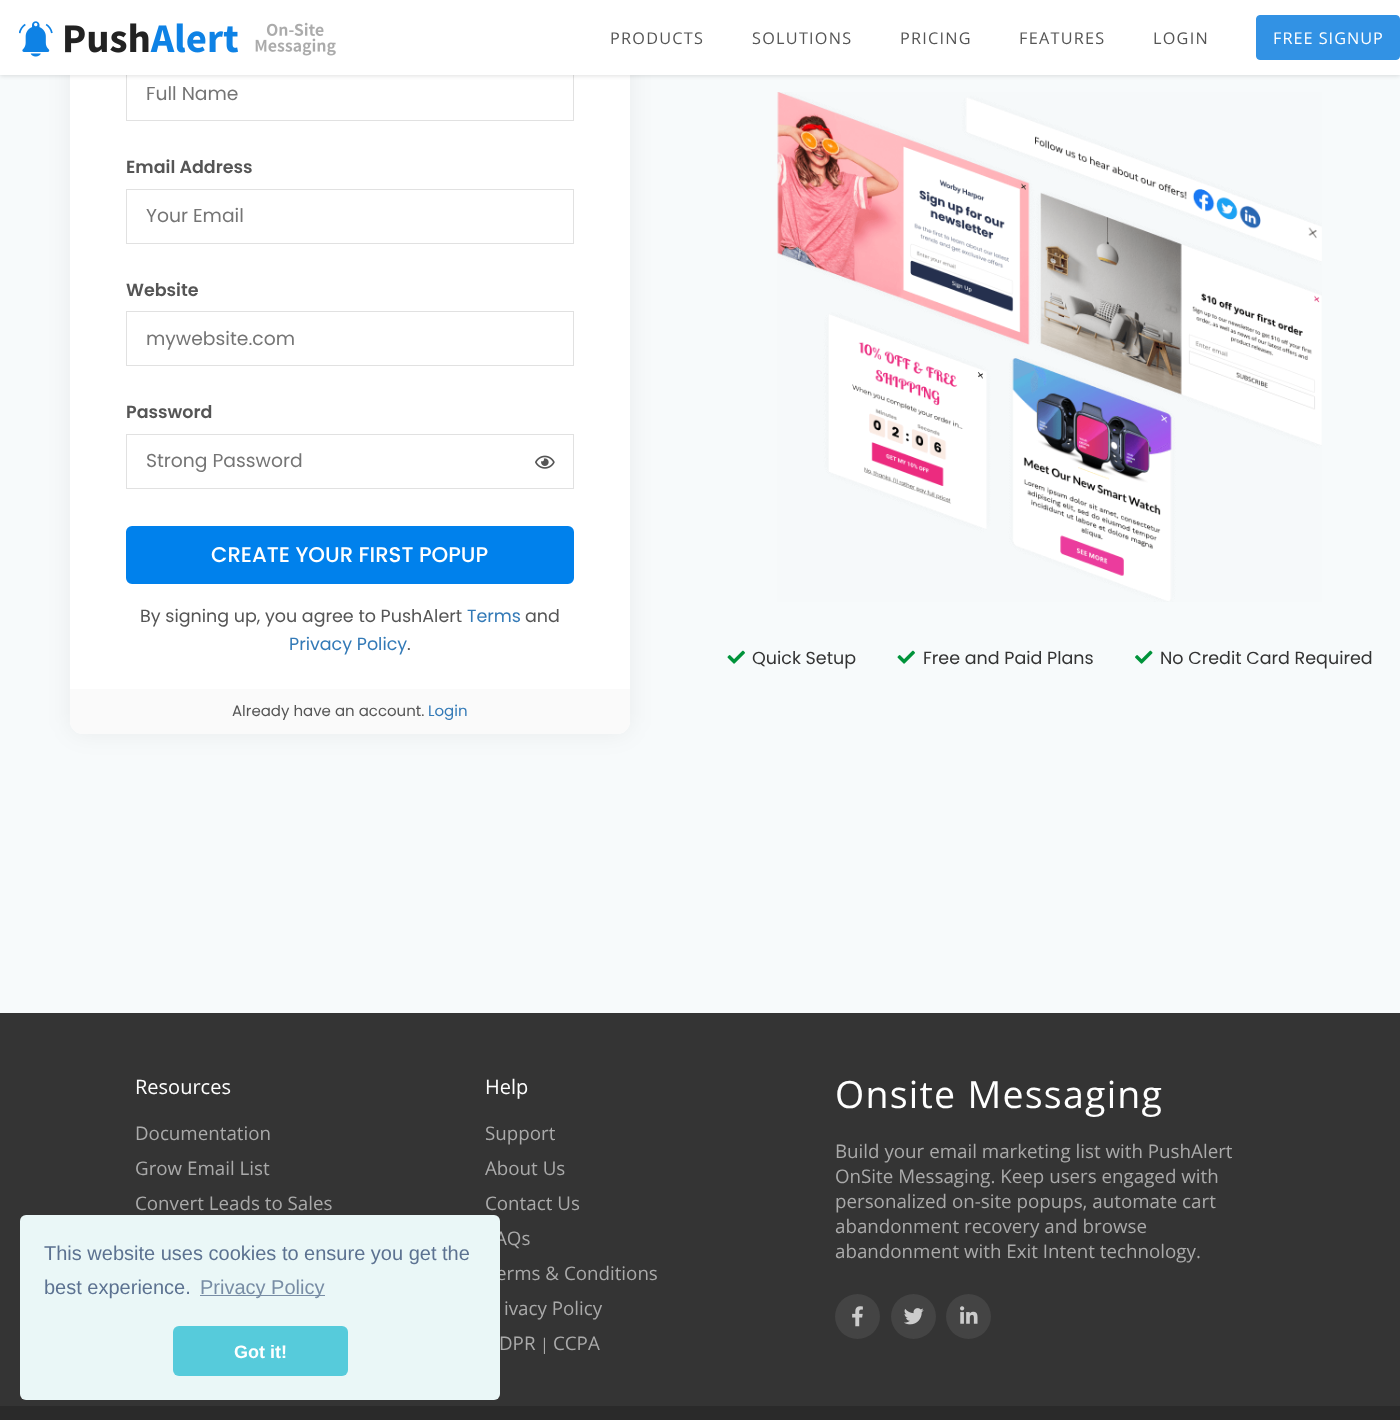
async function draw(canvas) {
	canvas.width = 1400;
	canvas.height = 1420;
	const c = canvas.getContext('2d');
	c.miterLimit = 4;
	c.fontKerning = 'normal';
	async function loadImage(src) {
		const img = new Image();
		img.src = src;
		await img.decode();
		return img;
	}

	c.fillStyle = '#f7fafb';
	c.fillRect(0, 0, 1400, 1420);
	c.fillStyle = '#0000000f';
	c.filter = 'blur(12.5px)';
	c.beginPath();
	c.roundRect(70, -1, 560, 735, 13);
	c.fill();
	c.filter = 'none';
	c.fillStyle = '#fff';
	c.beginPath();
	c.roundRect(70, -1, 560, 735, 13);
	c.fill();
	c.strokeStyle = '#e1e1e1';
	c.strokeRect(126.5, 66.5, 447, 54);
	c.fillStyle = '#0000001f';
	c.filter = 'blur(2px)';
	c.beginPath();
	c.rect(0, 1, 1400, 75);
	c.fill();
	c.filter = 'none';
	c.fillStyle = '#fff';
	c.fillRect(0, 0, 1400, 75);
	c.drawImage(await loadImage('img1.png'), 19, 21, 317, 36);
	c.letterSpacing = '1.25px';
	c.font = '16.25px Open Sans';
	c.fillStyle = '#555';
	for (const [text, x, y] of [
		['PRODUCTS', 610, 44],
		['SOLUTIONS', 752, 44],
		['PRICING', 900, 44],
		['FEATURES', 1019, 44],
		['LOGIN', 1153, 44],
	]) {
		c.fillText(text, x, y);
	}
	c.fillStyle = '#3292e4';
	c.beginPath();
	c.roundRect(1256.5, 15.5, 143, 44, 3.5);
	c.fill();
	c.strokeStyle = '#3292e4';
	c.stroke();
	c.letterSpacing = '1px';
	c.fillStyle = '#fff';
	c.fillText('FREE SIGNUP', 1273, 44);
	c.letterSpacing = '0px';
	c.font = '18.75px Poppins';
	c.fillStyle = '#757575';
	c.fillText('Full Name', 146, 100);
	c.font = '600 17.5px Poppins';
	c.fillStyle = '#555';
	c.fillText('Email Address', 126, 173);
	c.strokeStyle = '#e1e1e1';
	c.strokeRect(126.5, 189.5, 447, 54);
	c.font = '18.75px Poppins';
	c.fillStyle = '#757575';
	c.fillText('Your Email', 146, 222);
	c.font = '600 17.5px Poppins';
	c.fillStyle = '#555';
	c.fillText('Website', 126, 296);
	c.strokeRect(126.5, 311.5, 447, 54);
	c.font = '18.75px Poppins';
	c.fillStyle = '#757575';
	c.fillText('mywebsite.com', 146, 345);
	c.font = '600 17.5px Poppins';
	c.fillStyle = '#555';
	c.fillText('Password', 126, 418);
	c.strokeRect(126.5, 434.5, 447, 54);
	c.font = '18.75px Poppins';
	c.fillStyle = '#757575';
	c.fillText('Strong Password', 146, 467);
	c.drawImage(await loadImage('img2.png'), 535, 455, 20, 14);
	c.fillStyle = '#0081ec';
	c.beginPath();
	c.roundRect(127.5, 527.5, 445, 55, 4.5);
	c.fill();
	c.strokeStyle = '#0081ec';
	c.lineWidth = 3;
	c.stroke();
	c.font = '500 21.25px Poppins';
	c.fillStyle = '#fff';
	c.fillText('CREATE YOUR FIRST POPUP', 211, 562);
	c.font = '17.5px Poppins';
	c.fillStyle = '#555';
	c.fillText('By signing up, you agree to PushAlert', 140, 622);
	c.fillStyle = '#337ab7';
	c.fillText('Terms', 467, 622);
	c.fillStyle = '#555';
	c.fillText('and', 525, 622);
	c.fillStyle = '#337ab7';
	c.fillText('Privacy Policy', 289, 650);
	c.fillStyle = '#555';
	c.fillText('.', 407, 650);
	c.fillStyle = '#fafafa';
	c.beginPath();
	c.roundRect(70, 689, 560, 45, [0, 0, 13, 13]);
	c.fill();
	c.font = '15px Poppins';
	c.fillStyle = '#555';
	c.fillText('Already have an account.', 232, 716);
	c.fillStyle = '#337ab7';
	c.fillText('Login', 428, 716);
	c.drawImage(await loadImage('img3.png'), 777, 92, 545, 510);
	c.drawImage(await loadImage('img4.png'), 727, 650, 18, 14);
	c.font = '17.5px Poppins';
	c.fillStyle = '#333';
	c.fillText('Quick Setup', 752, 664);
	c.drawImage(await loadImage('img4.png'), 897, 650, 18, 14);
	c.fillText('Free and Paid Plans', 923, 664);
	c.drawImage(await loadImage('img5.png'), 1135, 650, 18, 14);
	c.fillText('No Credit Card Required', 1160, 664);
	c.fillStyle = '#343434';
	c.fillRect(0, 1013, 1400, 393);
	c.font = '20px Open Sans';
	c.fillStyle = '#fff';
	c.fillText('Resources', 135, 1094);
	c.font = '18.75px Open Sans';
	c.fillStyle = '#aaa';
	for (const [text, x, y] of [
		['Documentation', 135, 1140],
		['Grow Email List', 135, 1175],
		['Convert Leads to Sales', 135, 1210],
	]) {
		c.fillText(text, x, y);
	}
	c.font = '20px Open Sans';
	c.fillStyle = '#fff';
	c.fillText('Help', 485, 1094);
	c.font = '18.75px Open Sans';
	c.fillStyle = '#aaa';
	for (const [text, x, y] of [
		['Support', 485, 1140],
		['About Us', 485, 1175],
		['Contact Us', 485, 1210],
		['AQs', 495, 1245],
		['erms & Conditions', 496, 1280],
		['ivacy Policy', 504, 1315],
		['DPR', 499, 1350],
	]) {
		c.fillText(text, x, y);
	}
	c.font = '16.25px Open Sans';
	c.fillText('|', 540, 1350);
	c.font = '18.75px Open Sans';
	c.fillText('CCPA', 553, 1350);
	c.letterSpacing = '1.25px';
	c.font = '37.5px Open Sans';
	c.fillStyle = '#fff';
	c.fillText('Onsite Messaging', 835, 1108);
	c.letterSpacing = '0px';
	c.font = '18.75px Open Sans';
	c.fillStyle = '#aaa';
	for (const [text, x, y] of [
		['Build your email marketing list with PushAlert', 835, 1158],
		['OnSite Messaging. Keep users engaged with', 835, 1183],
		['personalized on-site popups, automate cart', 835, 1208],
		['abandonment recovery and browse', 835, 1233],
		['abandonment with Exit Intent technology.', 835, 1258],
	]) {
		c.fillText(text, x, y);
	}
	c.fillStyle = '#444';
	c.beginPath();
	c.arc(857.5, 1316.5, 22.5, 0, 2 * Math.PI);
	c.fill();
	c.drawImage(await loadImage('img6.png'), 852, 1306, 11, 21);
	c.beginPath();
	c.arc(913.5, 1316.5, 22.5, 0, 2 * Math.PI);
	c.fill();
	c.drawImage(await loadImage('img7.png'), 904, 1308, 20, 17);
	c.beginPath();
	c.arc(968.5, 1316.5, 22.5, 0, 2 * Math.PI);
	c.fill();
	c.drawImage(await loadImage('img8.png'), 960, 1306, 18, 18);
	c.fillStyle = '#2a2a2a';
	c.fillRect(0, 1406, 1400, 14);
	c.fillStyle = '#eaf7f7';
	c.beginPath();
	c.roundRect(20, 1215, 480, 185, 6);
	c.fill();
	c.font = '20px Liberation Sans';
	c.fillStyle = '#5c7291';
	c.fillText('This website uses cookies to ensure you get the', 44, 1260);
	c.fillText('best experience.', 44, 1294);
	c.fillStyle = '#788da5';
	c.fillRect(200, 1295, 125, 1);
	c.fillText('Privacy Policy', 200, 1294);
	c.fillStyle = '#56cbdb';
	c.beginPath();
	c.roundRect(173, 1326, 175, 50, 6);
	c.fill();
	c.font = 'bold 18px Liberation Sans';
	c.fillStyle = '#fff';
	c.fillText('Got it!', 234, 1358);
}

draw(document.querySelector('canvas'));
